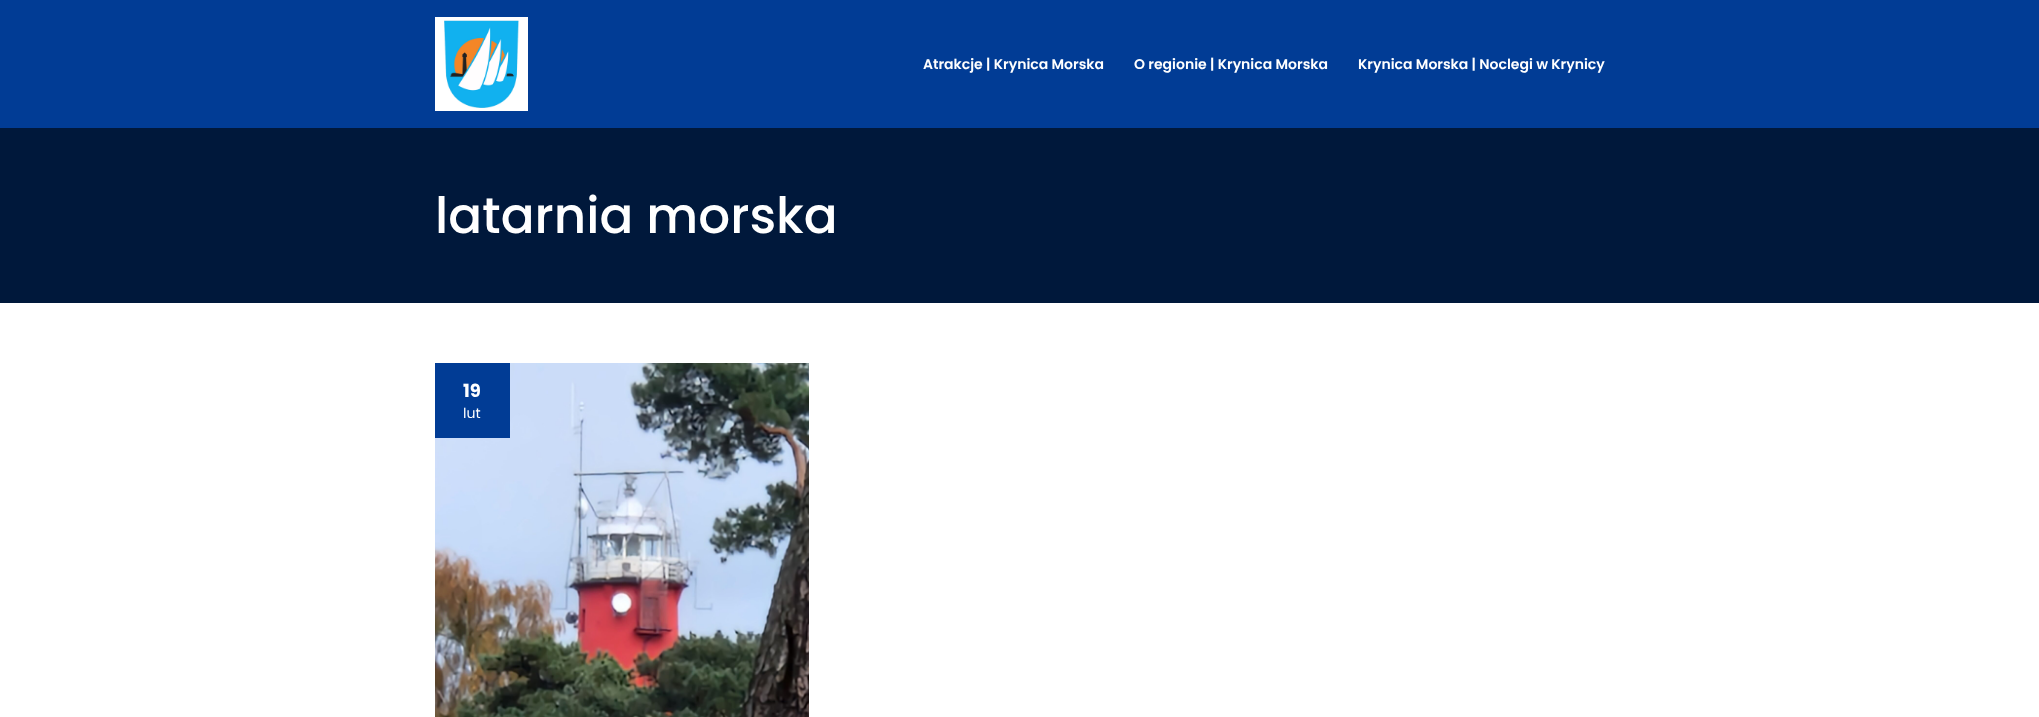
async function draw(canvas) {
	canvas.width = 2039;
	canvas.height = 717;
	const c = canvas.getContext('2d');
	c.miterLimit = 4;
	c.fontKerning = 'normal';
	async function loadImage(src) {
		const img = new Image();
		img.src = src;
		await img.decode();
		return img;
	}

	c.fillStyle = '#fff';
	c.fillRect(0, 0, 2039, 717);
	c.fillStyle = '#013c95';
	c.fillRect(0, 0, 2039, 128);
	c.drawImage(await loadImage('img1.png'), 435, 17, 93, 94);
	c.font = '600 14px Poppins';
	c.fillStyle = '#fff';
	for (const [text, x, y] of [
		['Atrakcje | Krynica Morska', 923, 69],
		['O regionie | Krynica Morska', 1134, 69],
		['Krynica Morska | Noclegi w Krynicy', 1358, 69],
	]) {
		c.fillText(text, x, y);
	}
	c.fillStyle = '#00183b';
	c.fillRect(0, 128, 2039, 175);
	c.font = '500 50px Poppins';
	c.fillStyle = '#fff';
	c.fillText('latarnia morska', 435, 233);
	c.drawImage(await loadImage('img2.png'), 435, 363, 374, 354);
	c.fillStyle = '#013c95';
	c.fillRect(435, 363, 75, 75);
	c.font = 'bold 18px Poppins';
	c.fillStyle = '#fff';
	c.fillText('19', 463, 397);
	c.font = '14px Poppins';
	c.fillText('lut', 463, 418);
}

draw(document.querySelector('canvas'));
